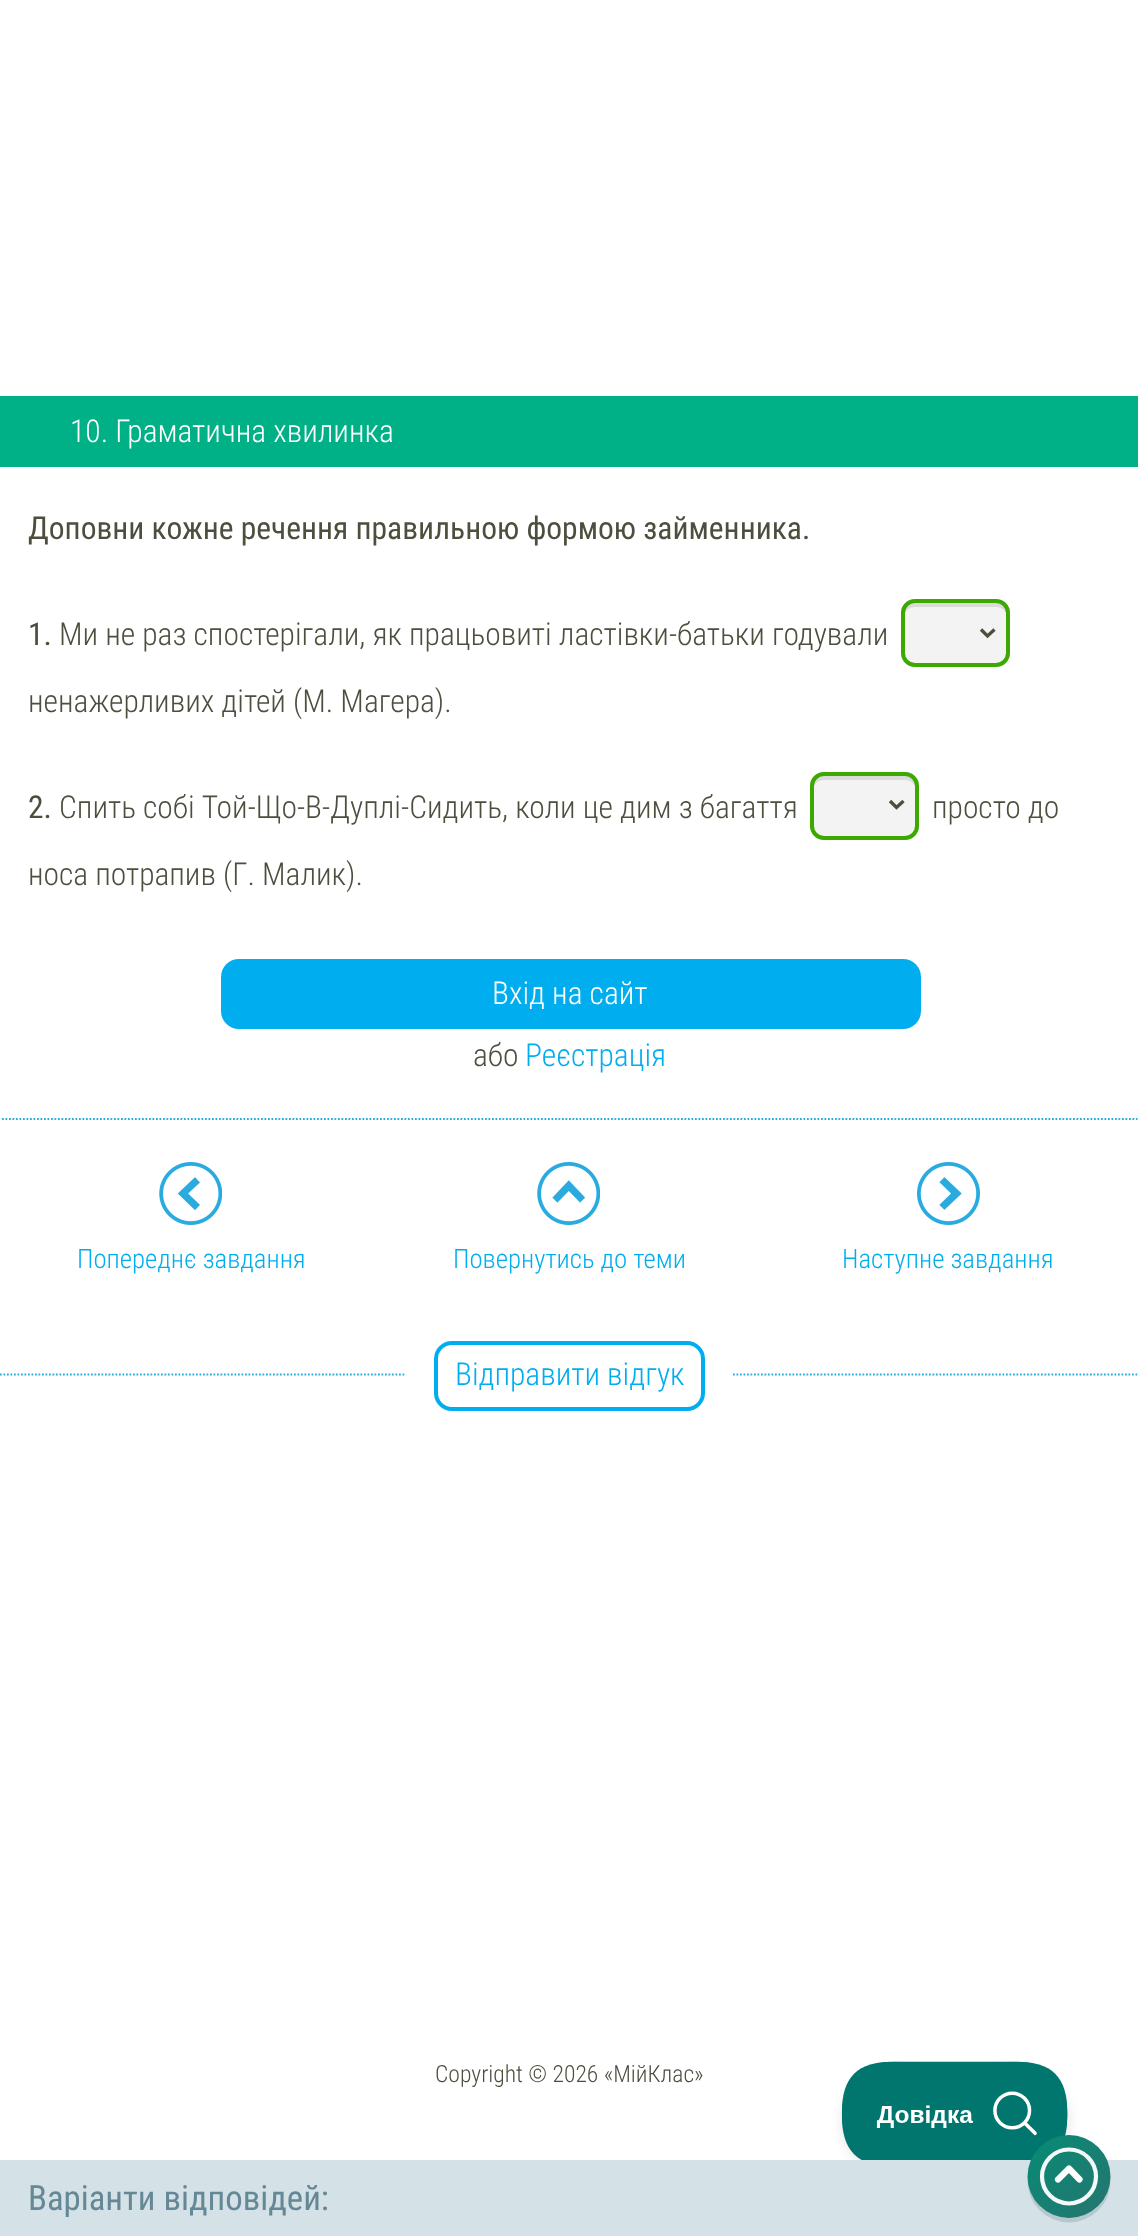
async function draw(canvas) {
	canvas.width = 1138;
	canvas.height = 2236;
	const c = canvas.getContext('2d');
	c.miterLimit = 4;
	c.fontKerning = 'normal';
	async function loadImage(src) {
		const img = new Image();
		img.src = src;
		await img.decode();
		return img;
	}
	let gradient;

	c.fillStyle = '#fff';
	c.fillRect(0, 0, 1138, 2236);
	c.fillStyle = '#00b188';
	c.fillRect(0, 396, 1138, 71);
	c.font = '300 31.5px Roboto Condensed';
	c.fillStyle = '#fff';
	c.fillText('10. Граматична хвилинка', 70, 442);
	c.font = '31.5px Roboto Condensed';
	c.fillStyle = '#4e4e3f';
	c.fillText('Доповни кожне речення правильною формою займенника.', 28, 539);
	c.fillText('1.', 28, 645);
	c.font = '300 31.5px Roboto Condensed';
	c.fillText('Ми не раз спостерігали, як працьовиті ластівки-батьки годували', 59, 645);
	c.fillStyle = '#f3f3f3';
	c.beginPath();
	c.roundRect(901, 599, 109, 68, 14);
	c.fill();
	c.beginPath();
	c.moveTo(994.5, 629.5);
	c.lineTo(987.5, 636);
	c.lineTo(981, 629.5);
	c.strokeStyle = '#4e4e3f';
	c.lineWidth = 3.3;
	c.stroke();
	c.fillStyle = '#dbdbdb';
	c.beginPath();
	c.moveTo(915, 607);
	c.lineTo(996, 607);
	c.bezierCurveTo(1000, 607, 1004, 609, 1006, 613);
	c.bezierCurveTo(1006, 607, 1001, 602, 995, 602);
	c.lineTo(916, 602);
	c.bezierCurveTo(910, 602, 905, 607, 905, 613);
	c.bezierCurveTo(907, 609, 911, 607, 915, 607);
	c.closePath();
	c.fill();
	c.beginPath();
	c.roundRect(903, 601, 105, 64, 12);
	c.strokeStyle = '#3ba900';
	c.lineWidth = 4;
	c.stroke();
	c.fillStyle = '#4e4e3f';
	c.fillText('ненажерливих дітей (М. Магера).', 28, 712);
	c.font = '31.5px Roboto Condensed';
	c.fillText('2.', 28, 818);
	c.font = '300 31.5px Roboto Condensed';
	c.fillText('Спить собі Той-Що-В-Дуплі-Сидить, коли це дим з багаття', 59, 818);
	c.fillStyle = '#f3f3f3';
	c.beginPath();
	c.roundRect(810, 772, 109, 68, 14);
	c.fill();
	c.beginPath();
	c.moveTo(903.5, 801);
	c.lineTo(896.5, 807.5);
	c.lineTo(890, 801);
	c.strokeStyle = '#4e4e3f';
	c.lineWidth = 3.3;
	c.stroke();
	c.fillStyle = '#dbdbdb';
	c.beginPath();
	c.moveTo(824, 780);
	c.lineTo(905, 780);
	c.bezierCurveTo(909, 780, 913, 782, 915, 786);
	c.bezierCurveTo(915, 780, 910, 775, 904, 775);
	c.lineTo(825, 775);
	c.bezierCurveTo(819, 775, 814, 780, 814, 786);
	c.bezierCurveTo(816, 782, 820, 780, 824, 780);
	c.closePath();
	c.fill();
	c.beginPath();
	c.roundRect(812, 774, 105, 64, 12);
	c.strokeStyle = '#3ba900';
	c.lineWidth = 4;
	c.stroke();
	c.fillStyle = '#4e4e3f';
	c.fillText('просто до', 932, 818);
	c.fillText('носа потрапив (Г. Малик).', 28, 885);
	c.fillStyle = '#0000001a';
	c.filter = 'blur(6px)';
	c.beginPath();
	c.roundRect(842, 2069, 227, 105, 52.5);
	c.fill();
	c.filter = 'none';
	c.fillStyle = '#d4e1e6';
	c.fillRect(0, 2160, 1138, 76);
	c.font = '34.75px Roboto Condensed';
	c.fillStyle = '#648896';
	c.fillText('Варіанти відповідей:', 28, 2210);
	c.drawImage(await loadImage('img4.png'), 841, 2061, 227, 99);
	c.fillStyle = '#41647233';
	c.beginPath();
	c.arc(1069, 2181, 41.5, 0, 2 * Math.PI);
	c.fill();
	gradient = c.createLinearGradient(1018, 2125, 1106, 2214);
	gradient.addColorStop(0, '#019076');
	gradient.addColorStop(0.41, '#118473');
	gradient.addColorStop(1, '#25766f');
	c.fillStyle = gradient;
	c.beginPath();
	c.arc(1069, 2176.5, 41.5, 0, 2 * Math.PI);
	c.fill();
	c.beginPath();
	c.arc(1069, 2176.5, 27, 0, 2 * Math.PI);
	c.strokeStyle = '#fffffff2';
	c.lineWidth = 4.2;
	c.stroke();
	c.beginPath();
	c.moveTo(1058, 2179.5);
	c.lineTo(1069, 2168.5);
	c.lineTo(1079.5, 2179.5);
	c.strokeStyle = '#fff';
	c.lineWidth = 6.2;
	c.lineCap = 'round';
	c.lineJoin = 'round';
	c.stroke();
	c.fillStyle = '#00aeef';
	c.beginPath();
	c.roundRect(221, 959, 700, 70, 18);
	c.fill();
	c.font = '300 31.5px Roboto Condensed';
	c.fillStyle = '#fff';
	c.fillText('Вхід на сайт', 492, 1004);
	c.fillStyle = '#4e4e3f';
	c.fillText('або', 473, 1066);
	c.fillStyle = '#00aeef';
	c.fillText('Реєстрація', 525, 1066);
	c.beginPath();
	c.moveTo(2, 1119);
	c.lineTo(1137.5, 1119);
	c.strokeStyle = '#29abe0';
	c.lineWidth = 1.8;
	c.lineCap = 'butt';
	c.lineJoin = 'miter';
	c.setLineDash([1.75, 1.75]);
	c.stroke();
	c.drawImage(await loadImage('img1.png'), 159, 1162, 63, 63);
	c.font = '300 26.75px Roboto Condensed';
	c.fillText('Попереднє завдання', 77, 1268);
	c.drawImage(await loadImage('img2.png'), 537, 1162, 63, 63);
	c.fillText('Повернутись до теми', 453, 1268);
	c.drawImage(await loadImage('img3.png'), 917, 1162, 63, 63);
	c.fillText('Наступне завдання', 842, 1268);
	c.beginPath();
	c.moveTo(0, 1374.5);
	c.lineTo(406, 1374.5);
	c.stroke();
	c.beginPath();
	c.roundRect(436, 1343, 267, 66, 16);
	c.strokeStyle = '#00aeef';
	c.lineWidth = 4;
	c.setLineDash([]);
	c.stroke();
	c.font = '300 31.5px Roboto Condensed';
	c.fillText('Відправити відгук', 455, 1385);
	c.beginPath();
	c.moveTo(733, 1374.5);
	c.lineTo(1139, 1374.5);
	c.strokeStyle = '#29abe0';
	c.lineWidth = 1.8;
	c.setLineDash([1.75, 1.75]);
	c.stroke();
	c.font = '300 23.6px Roboto Condensed';
	c.fillStyle = '#4e4e3f';
	c.fillText('Copyright © 2026 «МійКлас»', 435, 2082);
}

draw(document.querySelector('canvas'));
